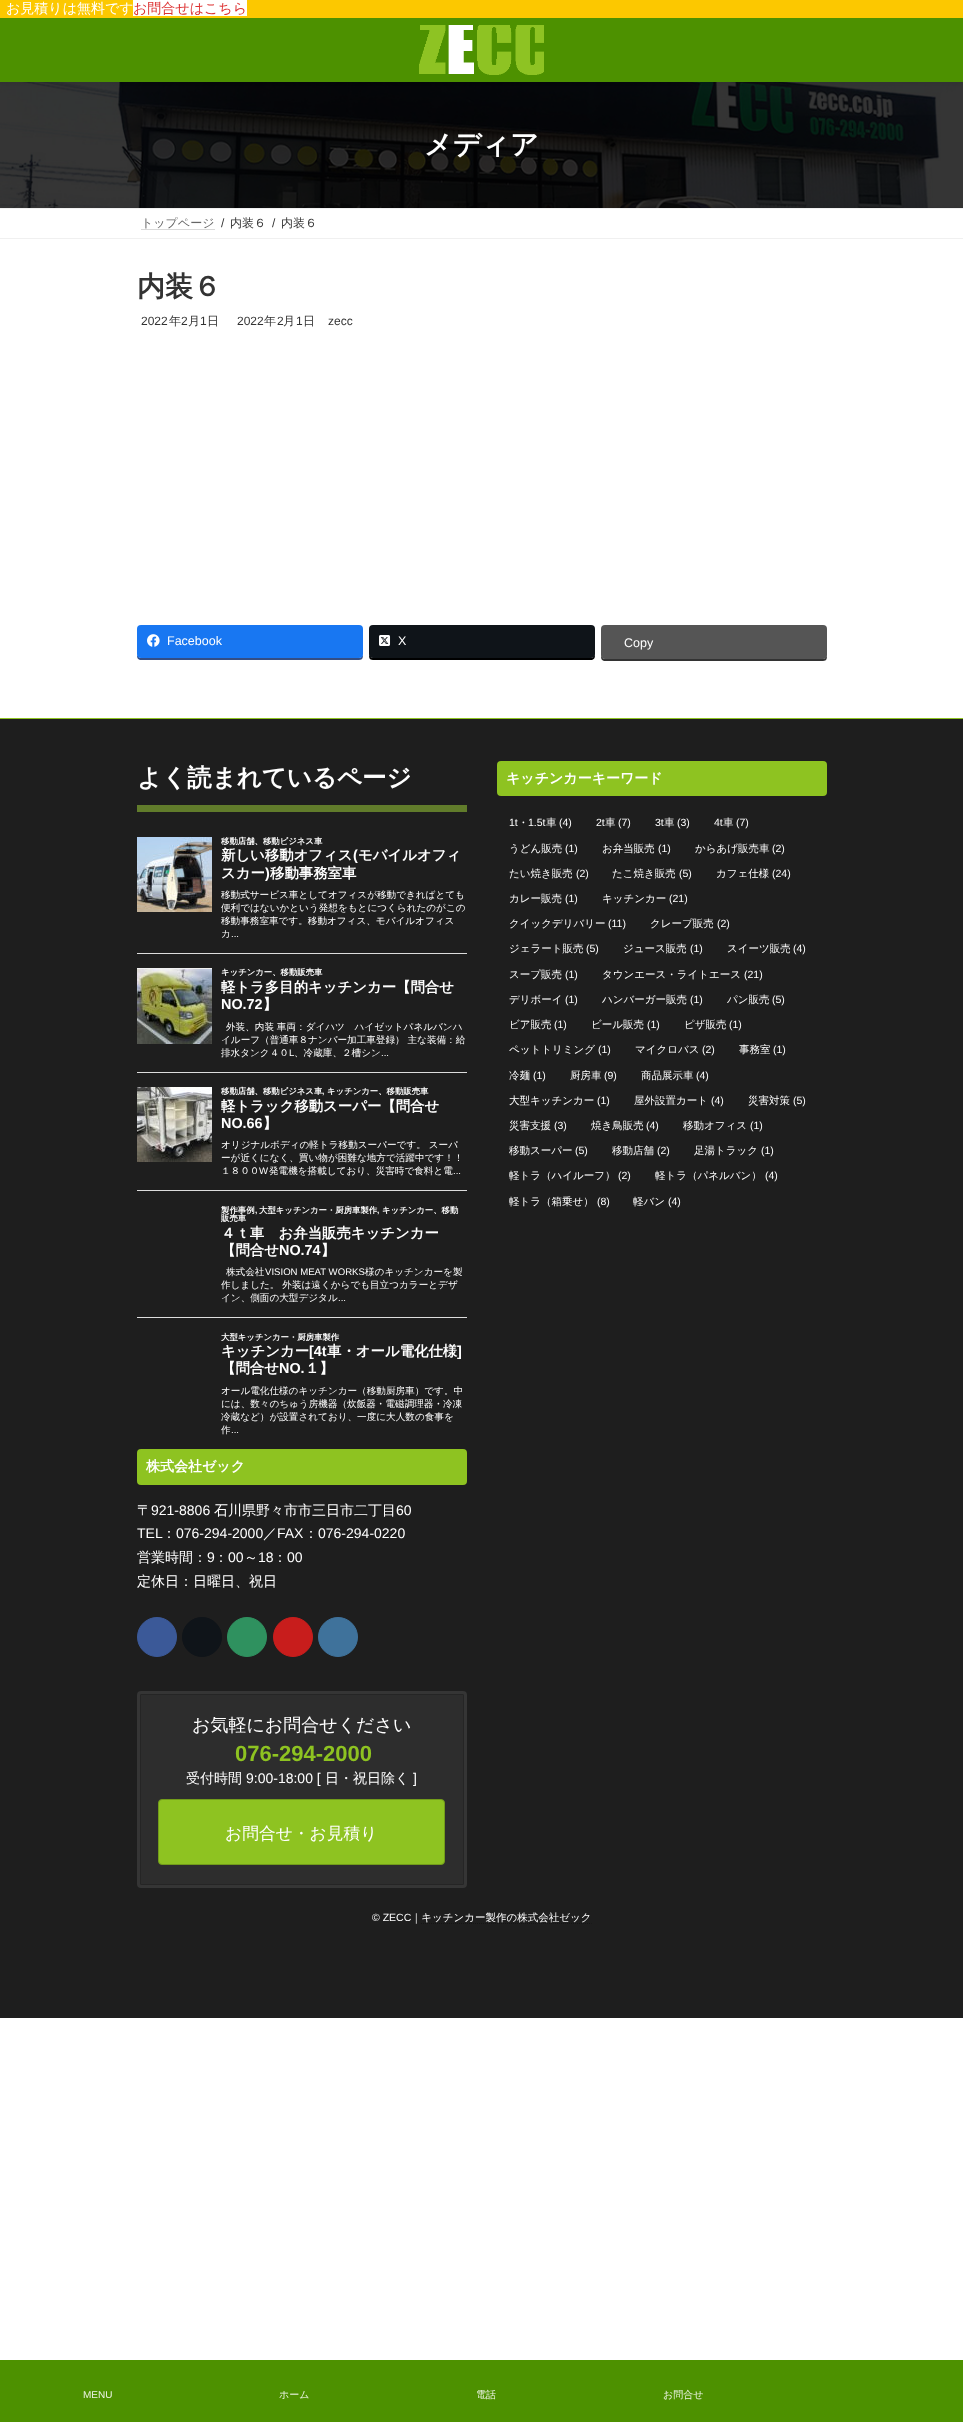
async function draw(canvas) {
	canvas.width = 963;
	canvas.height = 2422;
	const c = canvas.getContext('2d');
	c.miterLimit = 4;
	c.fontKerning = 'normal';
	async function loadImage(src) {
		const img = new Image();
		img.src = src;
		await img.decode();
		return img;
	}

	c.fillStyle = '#fff';
	c.fillRect(0, 0, 963, 2422);
	c.drawImage(await loadImage('img2.png'), 0, 82, 963, 126);
	c.fillStyle = '#0000000d';
	c.filter = 'blur(1.5px)';
	c.beginPath();
	c.rect(0, 1, 963, 82);
	c.fill();
	c.filter = 'none';
	c.fillStyle = '#4d9100';
	c.fillRect(0, 18, 963, 64);
	c.fillStyle = '#fcc800';
	c.fillRect(0, 0, 963, 18);
	c.font = '500 14px WenQuanYi Zen Hei';
	c.fillStyle = '#fff';
	c.fillText('お見積りは無料です', 6, 13);
	c.fillRect(133, 0, 114, 16);
	c.fillStyle = '#d33';
	c.fillText('お問合せはこちら', 133, 13);
	c.drawImage(await loadImage('img1.png'), 419, 25, 125, 50);
	c.font = 'bold 28px WenQuanYi Zen Hei';
	c.fillStyle = '#fff';
	c.fillText('メディア', 424, 154);
	c.fillStyle = '#f0f0f0';
	c.fillRect(0, 208, 963, 1);
	c.fillRect(0, 238, 963, 1);
	c.font = '500 12px WenQuanYi Zen Hei';
	c.fillStyle = '#666';
	c.fillText('トップページ', 141, 227);
	c.beginPath();
	c.moveTo(141.5, 229.5);
	c.lineTo(214.5, 229.5);
	c.strokeStyle = '#b3b3b3';
	c.setLineDash([1, 1]);
	c.stroke();
	c.font = '12px Liberation Sans';
	c.fillStyle = '#333';
	c.fillText('/', 221, 227);
	c.font = '500 12px WenQuanYi Zen Hei';
	c.fillText('内装６', 230, 227);
	c.font = '12px Liberation Sans';
	c.fillText('/', 272, 227);
	c.font = '500 12px WenQuanYi Zen Hei';
	c.fillText('内装６', 281, 227);
	c.font = 'bold 28px WenQuanYi Zen Hei';
	c.fillText('内装６', 137, 296);
	c.font = '12px Liberation Sans';
	c.fillText('2022', 141, 325);
	c.font = '500 12px WenQuanYi Zen Hei';
	c.fillText('年', 169, 325);
	c.font = '12px Liberation Sans';
	c.fillText('2', 181, 325);
	c.font = '500 12px WenQuanYi Zen Hei';
	c.fillText('月', 188, 325);
	c.font = '12px Liberation Sans';
	c.fillText('1', 200, 325);
	c.font = '500 12px WenQuanYi Zen Hei';
	c.fillText('日', 207, 325);
	c.font = '12px Liberation Sans';
	c.fillText('2022', 237, 325);
	c.font = '500 12px WenQuanYi Zen Hei';
	c.fillText('年', 264, 325);
	c.font = '12px Liberation Sans';
	c.fillText('2', 277, 325);
	c.font = '500 12px WenQuanYi Zen Hei';
	c.fillText('月', 283, 325);
	c.font = '12px Liberation Sans';
	c.fillText('1', 296, 325);
	c.font = '500 12px WenQuanYi Zen Hei';
	c.fillText('日', 303, 325);
	c.font = '12px Liberation Sans';
	c.fillText('zecc', 328, 325);
	c.fillStyle = '#344e84';
	c.beginPath();
	c.moveTo(137, 654);
	c.bezierCurveTo(137, 657, 137, 659, 140, 660);
	c.lineTo(359, 660);
	c.bezierCurveTo(363, 660, 363, 657, 363, 654);
	c.bezierCurveTo(363, 656, 361, 658, 359, 658);
	c.lineTo(141, 658);
	c.bezierCurveTo(139, 658, 137, 656, 137, 654);
	c.closePath();
	c.fill();
	c.fillStyle = '#1877f2';
	c.beginPath();
	c.roundRect(137, 625, 226, 33, 4);
	c.fill();
	c.drawImage(await loadImage('img3.png'), 147, 634, 13, 13);
	c.font = '12.5px Liberation Sans';
	c.fillStyle = '#fff';
	c.fillText('Facebook', 167, 645);
	c.fillStyle = '#000';
	c.beginPath();
	c.moveTo(369, 654);
	c.bezierCurveTo(369, 657, 369, 660, 373, 660);
	c.lineTo(592, 660);
	c.bezierCurveTo(595, 659, 595, 657, 595, 654);
	c.bezierCurveTo(595, 656, 593, 658, 591, 658);
	c.lineTo(373, 658);
	c.bezierCurveTo(371, 658, 369, 656, 369, 654);
	c.closePath();
	c.fill();
	c.fillStyle = '#0f1419';
	c.beginPath();
	c.roundRect(369, 625, 226, 33, 4);
	c.fill();
	c.drawImage(await loadImage('img4.png'), 379, 635, 12, 11);
	c.fillStyle = '#fff';
	c.fillText('X', 398, 645);
	c.fillStyle = '#333';
	c.beginPath();
	c.moveTo(601, 655);
	c.bezierCurveTo(601, 658, 601, 660, 604, 661);
	c.lineTo(823, 661);
	c.bezierCurveTo(827, 661, 827, 658, 827, 655);
	c.bezierCurveTo(827, 657, 825, 659, 823, 659);
	c.lineTo(605, 659);
	c.bezierCurveTo(603, 659, 601, 657, 601, 655);
	c.closePath();
	c.fill();
	c.fillStyle = '#555';
	c.beginPath();
	c.roundRect(601, 625, 226, 34, 4);
	c.fill();
	c.fillStyle = '#fff';
	c.fillText('Copy', 624, 647);
	c.fillStyle = '#1e1e1e';
	c.fillRect(0, 719, 963, 1299);
	c.fillStyle = '#8ec321';
	c.fillRect(0, 718, 963, 1);
	c.font = 'bold 24.5px WenQuanYi Zen Hei';
	c.fillStyle = '#fff';
	c.fillText('よく読まれているページ', 137, 786);
	c.fillStyle = '#617c2b';
	c.fillRect(137, 805, 330, 7);
	c.fillStyle = '#ddd';
	c.fillRect(137, 953, 330, 1);
	c.drawImage(await loadImage('img5.png'), 137, 837, 75, 75);
	c.font = 'bold 8.4px WenQuanYi Zen Hei';
	c.fillStyle = '#fff';
	c.fillText('移動店舗、移動ビジネス車', 221, 844);
	c.font = 'bold 14.4px WenQuanYi Zen Hei';
	c.fillText('新しい移動オフィス', 221, 860);
	c.font = 'bold 14.4px Liberation Sans';
	c.fillText('(', 353, 860);
	c.font = 'bold 14.4px WenQuanYi Zen Hei';
	c.fillText('モバイルオフィ', 358, 860);
	c.fillText('スカー', 221, 878);
	c.font = 'bold 14.4px Liberation Sans';
	c.fillText(')', 265, 878);
	c.font = 'bold 14.4px WenQuanYi Zen Hei';
	c.fillText('移動事務室車', 270, 878);
	c.font = '500 9.6px WenQuanYi Zen Hei';
	for (const [text, x, y] of [
		['移動式サービス車としてオフィスが移動できればとても', 221, 898],
		['便利ではないかという発想をもとにつくられたのがこの', 221, 911],
		['移動事務室車です。移動オフィス、モバイルオフィス', 221, 924],
		['カ', 221, 937],
	]) {
		c.fillText(text, x, y);
	}
	c.font = '9.6px Liberation Sans';
	c.fillText('...', 231, 937);
	c.fillStyle = '#ddd';
	c.fillRect(137, 1072, 330, 1);
	c.fillStyle = '#f0f0f0';
	c.fillRect(137, 968, 75, 1);
	c.drawImage(await loadImage('img6.png'), 137, 969, 75, 75);
	c.font = 'bold 8.4px WenQuanYi Zen Hei';
	c.fillStyle = '#fff';
	c.fillText('キッチンカー、移動販売車', 221, 975);
	c.font = 'bold 14.4px WenQuanYi Zen Hei';
	c.fillText('軽トラ多目的キッチンカー【問合せ', 221, 992);
	c.font = 'bold 14.4px Liberation Sans';
	c.fillText('NO.72', 221, 1009);
	c.font = 'bold 14.4px WenQuanYi Zen Hei';
	c.fillText('】', 263, 1009);
	c.font = '500 9.6px WenQuanYi Zen Hei';
	for (const [text, x, y] of [
		['外装、内装 車両：ダイハツ　ハイゼットパネルバンハ', 226, 1030],
		['イルーフ（普通車８ナンバー加工車登録） 主な装備：給', 221, 1043],
		['排水タンク４０', 221, 1056],
	]) {
		c.fillText(text, x, y);
	}
	c.font = '9.6px Liberation Sans';
	c.fillText('L', 289, 1056);
	c.font = '500 9.6px WenQuanYi Zen Hei';
	c.fillText('、冷蔵庫、２槽シン', 294, 1056);
	c.font = '9.6px Liberation Sans';
	c.fillText('...', 381, 1056);
	c.fillStyle = '#ddd';
	c.fillRect(137, 1190, 330, 1);
	c.drawImage(await loadImage('img7.png'), 137, 1087, 75, 75);
	c.font = 'bold 8.4px WenQuanYi Zen Hei';
	c.fillStyle = '#fff';
	c.fillText('移動店舗、移動ビジネス車', 221, 1094);
	c.font = 'bold 8.4px Liberation Sans';
	c.fillText(',', 322, 1094);
	c.font = 'bold 8.4px WenQuanYi Zen Hei';
	c.fillText('キッチンカー、移動販売車', 327, 1094);
	c.font = 'bold 14.4px WenQuanYi Zen Hei';
	c.fillText('軽トラック移動スーパー【問合せ', 221, 1111);
	c.font = 'bold 14.4px Liberation Sans';
	c.fillText('NO.66', 221, 1128);
	c.font = 'bold 14.4px WenQuanYi Zen Hei';
	c.fillText('】', 263, 1128);
	c.font = '500 9.6px WenQuanYi Zen Hei';
	for (const [text, x, y] of [
		['オリジナルボディの軽トラ移動スーパーです。 スーパ', 221, 1148],
		['ーが近くになく、買い物が困難な地方で活躍中です！！', 221, 1161],
		['１８００', 221, 1174],
	]) {
		c.fillText(text, x, y);
	}
	c.font = '9.6px Liberation Sans';
	c.fillText('W', 259, 1174);
	c.font = '500 9.6px WenQuanYi Zen Hei';
	c.fillText('発電機を搭載しており、災害時で食料と電', 269, 1174);
	c.font = '9.6px Liberation Sans';
	c.fillText('...', 453, 1174);
	c.fillStyle = '#ddd';
	c.fillRect(137, 1317, 330, 1);
	c.font = 'bold 8.4px WenQuanYi Zen Hei';
	c.fillStyle = '#fff';
	c.fillText('製作事例', 221, 1213);
	c.font = 'bold 8.4px Liberation Sans';
	c.fillText(',', 255, 1213);
	c.font = 'bold 8.4px WenQuanYi Zen Hei';
	c.fillText('大型キッチンカー・厨房車製作', 259, 1213);
	c.font = 'bold 8.4px Liberation Sans';
	c.fillText(',', 377, 1213);
	c.font = 'bold 8.4px WenQuanYi Zen Hei';
	c.fillText('キッチンカー、移動', 382, 1213);
	c.fillText('販売車', 221, 1221);
	c.font = 'bold 14.4px WenQuanYi Zen Hei';
	c.fillText('４ｔ車　お弁当販売キッチンカー', 221, 1238);
	c.fillText('【問合せ', 221, 1255);
	c.font = 'bold 14.4px Liberation Sans';
	c.fillText('NO.74', 279, 1255);
	c.font = 'bold 14.4px WenQuanYi Zen Hei';
	c.fillText('】', 321, 1255);
	c.font = '500 9.6px WenQuanYi Zen Hei';
	c.fillText('株式会社', 226, 1275);
	c.font = '9.6px Liberation Sans';
	c.fillText('VISION MEAT WORKS', 265, 1275);
	c.font = '500 9.6px WenQuanYi Zen Hei';
	for (const [text, x, y] of [
		['様のキッチンカーを製', 365, 1275],
		['作しました。 外装は遠くからでも目立つカラーとデザ', 221, 1288],
		['イン、側面の大型デジタル', 221, 1301],
	]) {
		c.fillText(text, x, y);
	}
	c.font = '9.6px Liberation Sans';
	c.fillText('...', 338, 1301);
	c.font = 'bold 8.4px WenQuanYi Zen Hei';
	c.fillText('大型キッチンカー・厨房車製作', 221, 1340);
	c.font = 'bold 14.4px WenQuanYi Zen Hei';
	c.fillText('キッチンカー', 221, 1356);
	c.font = 'bold 14.4px Liberation Sans';
	c.fillText('[4t', 309, 1356);
	c.font = 'bold 14.4px WenQuanYi Zen Hei';
	c.fillText('車・オール電化仕様', 327, 1356);
	c.font = 'bold 14.4px Liberation Sans';
	c.fillText(']', 457, 1356);
	c.font = 'bold 14.4px WenQuanYi Zen Hei';
	c.fillText('【問合せ', 221, 1373);
	c.font = 'bold 14.4px Liberation Sans';
	c.fillText('NO.', 279, 1373);
	c.font = 'bold 14.4px WenQuanYi Zen Hei';
	c.fillText('１】', 305, 1373);
	c.font = '500 9.6px WenQuanYi Zen Hei';
	for (const [text, x, y] of [
		['オール電化仕様のキッチンカー（移動厨房車）です。中', 221, 1394],
		['には、数々のちゅう房機器（炊飯器・電磁調理器・冷凍', 221, 1407],
		['冷蔵など）が設置されており、一度に大人数の食事を', 221, 1420],
		['作', 221, 1433],
	]) {
		c.fillText(text, x, y);
	}
	c.font = '9.6px Liberation Sans';
	c.fillText('...', 231, 1433);
	c.fillStyle = '#8ec321';
	c.beginPath();
	c.roundRect(497, 761, 330, 35, 4);
	c.fill();
	c.font = 'bold 14px WenQuanYi Zen Hei';
	c.fillStyle = '#fff';
	c.fillText('キッチンカーキーワード', 506, 783);
	c.font = '10.5px Liberation Sans';
	c.fillText('1t', 509, 826);
	c.font = '500 10.5px WenQuanYi Zen Hei';
	c.fillText('・', 518, 826);
	c.font = '10.5px Liberation Sans';
	c.fillText('1.5t', 528, 826);
	c.font = '500 10.5px WenQuanYi Zen Hei';
	c.fillText('車', 546, 826);
	c.font = '10.5px Liberation Sans';
	c.fillText('(4)', 559, 826);
	c.fillText('2t', 596, 826);
	c.font = '500 10.5px WenQuanYi Zen Hei';
	c.fillText('車', 605, 826);
	c.font = '10.5px Liberation Sans';
	c.fillText('(7)', 618, 826);
	c.fillText('3t', 655, 826);
	c.font = '500 10.5px WenQuanYi Zen Hei';
	c.fillText('車', 664, 826);
	c.font = '10.5px Liberation Sans';
	c.fillText('(3)', 677, 826);
	c.fillText('4t', 714, 826);
	c.font = '500 10.5px WenQuanYi Zen Hei';
	c.fillText('車', 723, 826);
	c.font = '10.5px Liberation Sans';
	c.fillText('(7)', 736, 826);
	c.font = '500 10.5px WenQuanYi Zen Hei';
	c.fillText('うどん販売', 509, 852);
	c.font = '10.5px Liberation Sans';
	c.fillText('(1)', 565, 852);
	c.font = '500 10.5px WenQuanYi Zen Hei';
	c.fillText('お弁当販売', 602, 852);
	c.font = '10.5px Liberation Sans';
	c.fillText('(1)', 658, 852);
	c.font = '500 10.5px WenQuanYi Zen Hei';
	c.fillText('からあげ販売車', 695, 852);
	c.font = '10.5px Liberation Sans';
	c.fillText('(2)', 772, 852);
	c.font = '500 10.5px WenQuanYi Zen Hei';
	c.fillText('たい焼き販売', 509, 877);
	c.font = '10.5px Liberation Sans';
	c.fillText('(2)', 576, 877);
	c.font = '500 10.5px WenQuanYi Zen Hei';
	c.fillText('たこ焼き販売', 612, 877);
	c.font = '10.5px Liberation Sans';
	c.fillText('(5)', 679, 877);
	c.font = '500 10.5px WenQuanYi Zen Hei';
	c.fillText('カフェ仕様', 716, 877);
	c.font = '10.5px Liberation Sans';
	c.fillText('(24)', 772, 877);
	c.font = '500 10.5px WenQuanYi Zen Hei';
	c.fillText('カレー販売', 509, 902);
	c.font = '10.5px Liberation Sans';
	c.fillText('(1)', 565, 902);
	c.font = '500 10.5px WenQuanYi Zen Hei';
	c.fillText('キッチンカー', 602, 902);
	c.font = '10.5px Liberation Sans';
	c.fillText('(21)', 669, 902);
	c.font = '500 10.5px WenQuanYi Zen Hei';
	c.fillText('クイックデリバリー', 509, 927);
	c.font = '10.5px Liberation Sans';
	c.fillText('(11)', 608, 927);
	c.font = '500 10.5px WenQuanYi Zen Hei';
	c.fillText('クレープ販売', 650, 927);
	c.font = '10.5px Liberation Sans';
	c.fillText('(2)', 717, 927);
	c.font = '500 10.5px WenQuanYi Zen Hei';
	c.fillText('ジェラート販売', 509, 952);
	c.font = '10.5px Liberation Sans';
	c.fillText('(5)', 586, 952);
	c.font = '500 10.5px WenQuanYi Zen Hei';
	c.fillText('ジュース販売', 623, 952);
	c.font = '10.5px Liberation Sans';
	c.fillText('(1)', 690, 952);
	c.font = '500 10.5px WenQuanYi Zen Hei';
	c.fillText('スイーツ販売', 727, 952);
	c.font = '10.5px Liberation Sans';
	c.fillText('(4)', 793, 952);
	c.font = '500 10.5px WenQuanYi Zen Hei';
	c.fillText('スープ販売', 509, 978);
	c.font = '10.5px Liberation Sans';
	c.fillText('(1)', 565, 978);
	c.font = '500 10.5px WenQuanYi Zen Hei';
	c.fillText('タウンエース・ライトエース', 602, 978);
	c.font = '10.5px Liberation Sans';
	c.fillText('(21)', 744, 978);
	c.font = '500 10.5px WenQuanYi Zen Hei';
	c.fillText('デリボーイ', 509, 1003);
	c.font = '10.5px Liberation Sans';
	c.fillText('(1)', 565, 1003);
	c.font = '500 10.5px WenQuanYi Zen Hei';
	c.fillText('ハンバーガー販売', 602, 1003);
	c.font = '10.5px Liberation Sans';
	c.fillText('(1)', 690, 1003);
	c.font = '500 10.5px WenQuanYi Zen Hei';
	c.fillText('パン販売', 727, 1003);
	c.font = '10.5px Liberation Sans';
	c.fillText('(5)', 772, 1003);
	c.font = '500 10.5px WenQuanYi Zen Hei';
	c.fillText('ビア販売', 509, 1028);
	c.font = '10.5px Liberation Sans';
	c.fillText('(1)', 554, 1028);
	c.font = '500 10.5px WenQuanYi Zen Hei';
	c.fillText('ビール販売', 591, 1028);
	c.font = '10.5px Liberation Sans';
	c.fillText('(1)', 647, 1028);
	c.font = '500 10.5px WenQuanYi Zen Hei';
	c.fillText('ピザ販売', 684, 1028);
	c.font = '10.5px Liberation Sans';
	c.fillText('(1)', 729, 1028);
	c.font = '500 10.5px WenQuanYi Zen Hei';
	c.fillText('ペットトリミング', 509, 1053);
	c.font = '10.5px Liberation Sans';
	c.fillText('(1)', 598, 1053);
	c.font = '500 10.5px WenQuanYi Zen Hei';
	c.fillText('マイクロバス', 635, 1053);
	c.font = '10.5px Liberation Sans';
	c.fillText('(2)', 702, 1053);
	c.font = '500 10.5px WenQuanYi Zen Hei';
	c.fillText('事務室', 739, 1053);
	c.font = '10.5px Liberation Sans';
	c.fillText('(1)', 773, 1053);
	c.font = '500 10.5px WenQuanYi Zen Hei';
	c.fillText('冷麺', 509, 1079);
	c.font = '10.5px Liberation Sans';
	c.fillText('(1)', 533, 1079);
	c.font = '500 10.5px WenQuanYi Zen Hei';
	c.fillText('厨房車', 570, 1079);
	c.font = '10.5px Liberation Sans';
	c.fillText('(9)', 604, 1079);
	c.font = '500 10.5px WenQuanYi Zen Hei';
	c.fillText('商品展示車', 641, 1079);
	c.font = '10.5px Liberation Sans';
	c.fillText('(4)', 696, 1079);
	c.font = '500 10.5px WenQuanYi Zen Hei';
	c.fillText('大型キッチンカー', 509, 1104);
	c.font = '10.5px Liberation Sans';
	c.fillText('(1)', 597, 1104);
	c.font = '500 10.5px WenQuanYi Zen Hei';
	c.fillText('屋外設置カート', 634, 1104);
	c.font = '10.5px Liberation Sans';
	c.fillText('(4)', 711, 1104);
	c.font = '500 10.5px WenQuanYi Zen Hei';
	c.fillText('災害対策', 748, 1104);
	c.font = '10.5px Liberation Sans';
	c.fillText('(5)', 793, 1104);
	c.font = '500 10.5px WenQuanYi Zen Hei';
	c.fillText('災害支援', 509, 1129);
	c.font = '10.5px Liberation Sans';
	c.fillText('(3)', 554, 1129);
	c.font = '500 10.5px WenQuanYi Zen Hei';
	c.fillText('焼き鳥販売', 591, 1129);
	c.font = '10.5px Liberation Sans';
	c.fillText('(4)', 646, 1129);
	c.font = '500 10.5px WenQuanYi Zen Hei';
	c.fillText('移動オフィス', 683, 1129);
	c.font = '10.5px Liberation Sans';
	c.fillText('(1)', 750, 1129);
	c.font = '500 10.5px WenQuanYi Zen Hei';
	c.fillText('移動スーパー', 509, 1154);
	c.font = '10.5px Liberation Sans';
	c.fillText('(5)', 575, 1154);
	c.font = '500 10.5px WenQuanYi Zen Hei';
	c.fillText('移動店舗', 612, 1154);
	c.font = '10.5px Liberation Sans';
	c.fillText('(2)', 657, 1154);
	c.font = '500 10.5px WenQuanYi Zen Hei';
	c.fillText('足湯トラック', 694, 1154);
	c.font = '10.5px Liberation Sans';
	c.fillText('(1)', 761, 1154);
	c.font = '500 10.5px WenQuanYi Zen Hei';
	c.fillText('軽トラ（ハイルーフ）', 509, 1179);
	c.font = '10.5px Liberation Sans';
	c.fillText('(2)', 618, 1179);
	c.font = '500 10.5px WenQuanYi Zen Hei';
	c.fillText('軽トラ（パネルバン）', 655, 1179);
	c.font = '10.5px Liberation Sans';
	c.fillText('(4)', 765, 1179);
	c.font = '500 10.5px WenQuanYi Zen Hei';
	c.fillText('軽トラ（箱乗せ）', 509, 1205);
	c.font = '10.5px Liberation Sans';
	c.fillText('(8)', 597, 1205);
	c.font = '500 10.5px WenQuanYi Zen Hei';
	c.fillText('軽バン', 633, 1205);
	c.font = '10.5px Liberation Sans';
	c.fillText('(4)', 668, 1205);
	c.fillStyle = '#8ec321';
	c.beginPath();
	c.roundRect(137, 1449, 330, 36, 4);
	c.fill();
	c.font = 'bold 14px WenQuanYi Zen Hei';
	c.fillStyle = '#fff';
	c.fillText('株式会社ゼック', 146, 1471);
	c.font = '500 14px WenQuanYi Zen Hei';
	c.fillText('〒', 137, 1515);
	c.font = '14px Liberation Sans';
	c.fillText('921-8806', 151, 1515);
	c.font = '500 14px WenQuanYi Zen Hei';
	c.fillText('石川県野々市市三日市二丁目', 214, 1515);
	c.font = '14px Liberation Sans';
	c.fillText('60', 396, 1515);
	c.fillText('TEL', 137, 1538);
	c.font = '500 14px WenQuanYi Zen Hei';
	c.fillText('：', 162, 1538);
	c.font = '14px Liberation Sans';
	c.fillText('076-294-2000', 176, 1538);
	c.font = '500 14px WenQuanYi Zen Hei';
	c.fillText('／', 263, 1538);
	c.font = '14px Liberation Sans';
	c.fillText('FAX', 277, 1538);
	c.font = '500 14px WenQuanYi Zen Hei';
	c.fillText('：', 304, 1538);
	c.font = '14px Liberation Sans';
	c.fillText('076-294-0220', 318, 1538);
	c.font = '500 14px WenQuanYi Zen Hei';
	c.fillText('営業時間：', 137, 1562);
	c.font = '14px Liberation Sans';
	c.fillText('9', 207, 1562);
	c.font = '500 14px WenQuanYi Zen Hei';
	c.fillText('：', 214, 1562);
	c.font = '14px Liberation Sans';
	c.fillText('00', 228, 1562);
	c.font = '500 14px WenQuanYi Zen Hei';
	c.fillText('～', 244, 1562);
	c.font = '14px Liberation Sans';
	c.fillText('18', 258, 1562);
	c.font = '500 14px WenQuanYi Zen Hei';
	c.fillText('：', 273, 1562);
	c.font = '14px Liberation Sans';
	c.fillText('00', 287, 1562);
	c.font = '500 14px WenQuanYi Zen Hei';
	c.fillText('定休日：日曜日、祝日', 137, 1586);
	c.fillStyle = '#3b5998';
	c.beginPath();
	c.arc(157, 1637, 19.5, 0, 2 * Math.PI);
	c.fill();
	c.strokeStyle = '#3b5998';
	c.setLineDash([]);
	c.stroke();
	c.fillStyle = '#0f1419';
	c.beginPath();
	c.arc(202, 1637, 19.5, 0, 2 * Math.PI);
	c.fill();
	c.strokeStyle = '#0f1419';
	c.stroke();
	c.fillStyle = '#2f915f';
	c.beginPath();
	c.arc(247, 1637, 19.5, 0, 2 * Math.PI);
	c.fill();
	c.strokeStyle = '#2f915f';
	c.stroke();
	c.fillStyle = '#c81d1c';
	c.beginPath();
	c.arc(293, 1637, 19.5, 0, 2 * Math.PI);
	c.fill();
	c.strokeStyle = '#c81d1c';
	c.stroke();
	c.fillStyle = '#3f729b';
	c.beginPath();
	c.arc(338, 1637, 19.5, 0, 2 * Math.PI);
	c.fill();
	c.strokeStyle = '#3f729b';
	c.stroke();
	c.beginPath();
	c.roundRect(138.5, 1692.5, 327, 194, 2.5);
	c.strokeStyle = '#353535';
	c.lineWidth = 3;
	c.stroke();
	c.fillStyle = '#ffffff12';
	c.fillRect(140, 1694, 324, 191);
	c.fillStyle = '#252525';
	c.beginPath();
	c.moveTo(141, 1694);
	c.lineTo(140, 1695);
	c.lineTo(140, 1884);
	c.lineTo(141, 1885);
	c.lineTo(463, 1885);
	c.lineTo(464, 1884);
	c.lineTo(464, 1695);
	c.lineTo(463, 1694);
	c.closePath();
	c.moveTo(141, 1695);
	c.lineTo(141, 1884);
	c.lineTo(463, 1884);
	c.lineTo(463, 1695);
	c.closePath();
	c.fill('evenodd');
	c.font = '500 18px WenQuanYi Zen Hei';
	c.fillStyle = '#fff';
	c.fillText('お気軽にお問合せください', 192, 1731);
	c.font = 'bold 22px Liberation Sans';
	c.fillStyle = '#8ec321';
	c.fillText('076-294-2000', 235, 1761);
	c.font = '500 14px WenQuanYi Zen Hei';
	c.fillStyle = '#fff';
	c.fillText('受付時間', 186, 1783);
	c.font = '14px Liberation Sans';
	c.fillText('9:00-18:00 [', 246, 1783);
	c.font = '500 14px WenQuanYi Zen Hei';
	c.fillText('日・祝日除く', 325, 1783);
	c.font = '14px Liberation Sans';
	c.fillText(']', 413, 1783);
	c.fillStyle = '#8ec321';
	c.beginPath();
	c.roundRect(158.5, 1799.5, 286, 65, 3.5);
	c.fill();
	c.strokeStyle = '#729c1a';
	c.lineWidth = 1;
	c.stroke();
	c.font = '500 16.75px WenQuanYi Zen Hei';
	c.fillStyle = '#fff';
	c.fillText('お問合せ・お見積り', 225, 1839);
	c.font = '10.5px Liberation Sans';
	c.fillText('© ZECC', 372, 1921);
	c.font = '500 10.5px WenQuanYi Zen Hei';
	c.fillText('｜キッチンカー製作の株式会社ゼック', 411, 1921);
	c.beginPath();
	c.moveTo(421, 1923.5);
	c.lineTo(591.5, 1923.5);
	c.strokeStyle = '#151515';
	c.setLineDash([1, 1]);
	c.stroke();
	c.fillStyle = '#4d9100';
	c.fillRect(0, 2360, 963, 62);
	c.font = '10px Liberation Sans';
	c.fillStyle = '#edf4e6';
	c.fillText('MENU', 83, 2398);
	c.font = '500 10px WenQuanYi Zen Hei';
	for (const [text, x, y] of [
		['ホーム', 279, 2398],
		['電話', 476, 2398],
		['お問合せ', 663, 2398],
	]) {
		c.fillText(text, x, y);
	}
}

draw(document.querySelector('canvas'));
